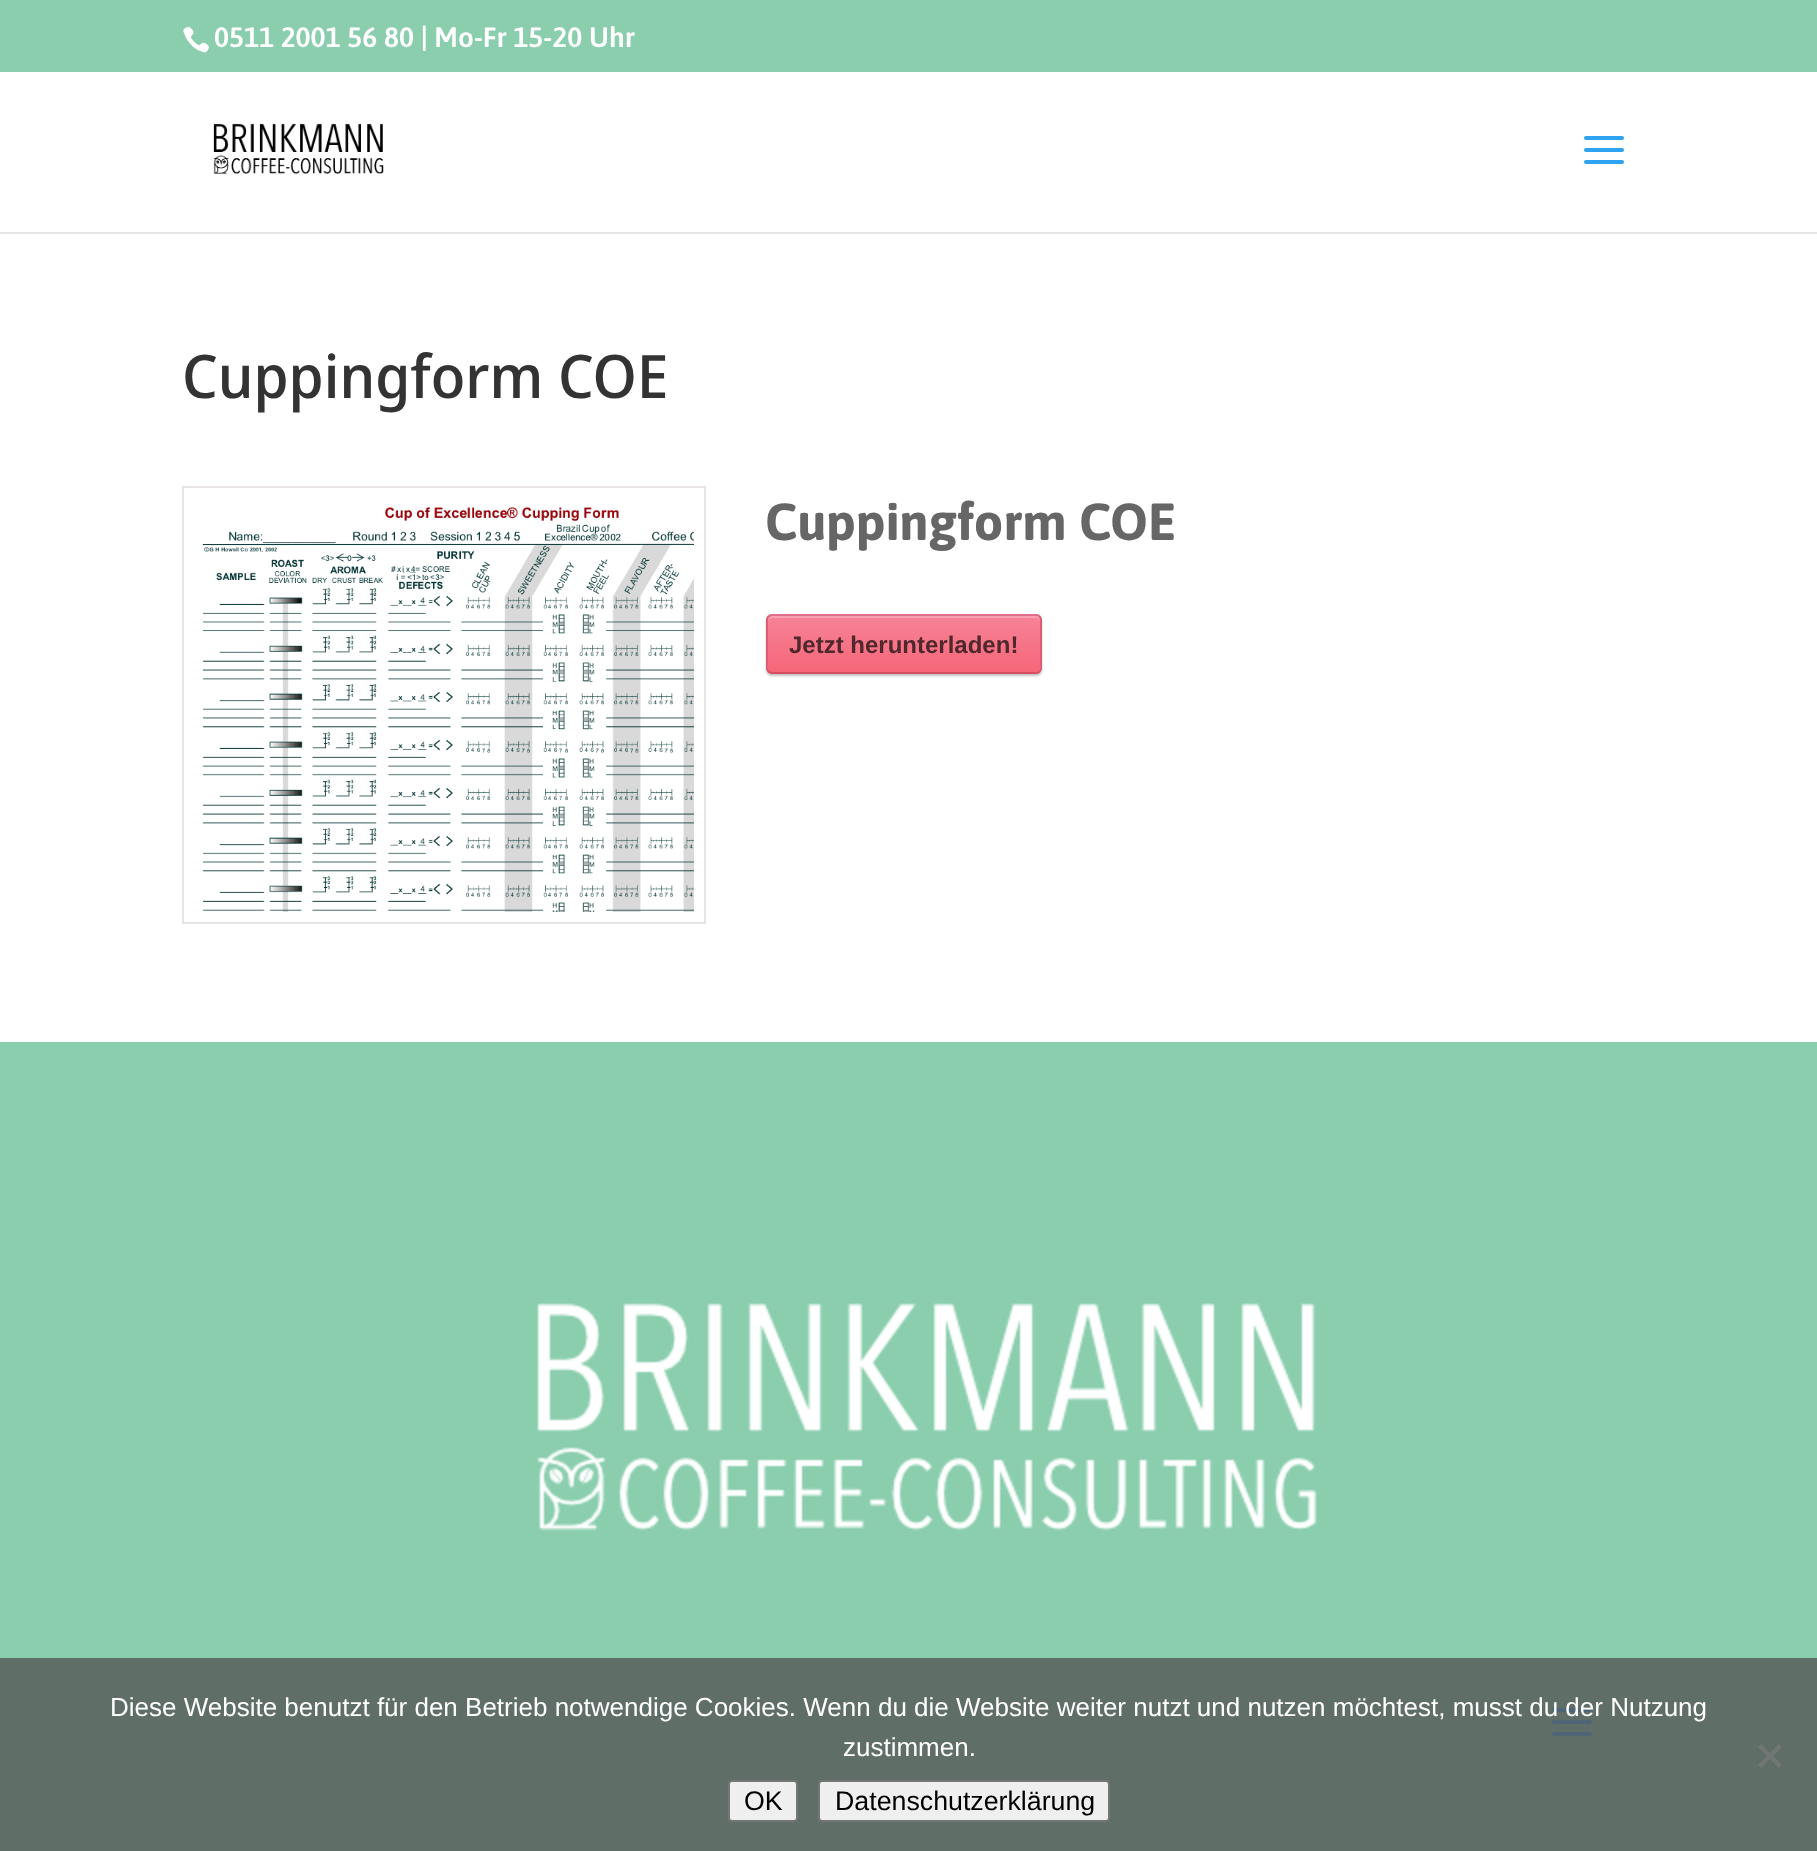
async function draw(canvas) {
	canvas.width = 1817;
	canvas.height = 1851;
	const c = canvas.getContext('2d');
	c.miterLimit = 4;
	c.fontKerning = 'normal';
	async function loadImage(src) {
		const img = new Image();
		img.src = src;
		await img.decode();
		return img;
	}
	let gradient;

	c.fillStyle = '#fff';
	c.fillRect(0, 0, 1817, 1851);
	c.fillStyle = '#8aceae';
	c.fillRect(0, 0, 1817, 72);
	c.drawImage(await loadImage('img1.png'), 183, 26, 26, 27);
	c.font = '600 28px Asap';
	c.fillStyle = '#fff';
	c.fillText('0511 2001 56 80 | Mo-Fr 15-20 Uhr', 214, 47);
	c.fillStyle = '#e6e6e6';
	c.fillRect(0, 232, 1817, 2);
	c.drawImage(await loadImage('img2.png'), 213, 123, 171, 51);
	c.drawImage(await loadImage('img3.png'), 1584, 136, 40, 28);
	c.font = '500 60px Noto Sans Display';
	c.fillStyle = '#333';
	c.fillText('Cuppingform COE', 182, 398);
	c.strokeStyle = '#e8e4e3';
	c.lineWidth = 2;
	c.strokeRect(183, 487, 522, 436);
	c.drawImage(await loadImage('img4.png'), 202, 507, 492, 405);
	c.font = 'bold 52px Asap';
	c.fillStyle = '#666';
	c.fillText('Cuppingform COE', 765, 540);
	c.fillStyle = '#c1c1c1';
	c.filter = 'blur(1px)';
	c.beginPath();
	c.roundRect(766, 616, 276, 60, 6);
	c.fill();
	c.filter = 'none';
	c.save();
	c.beginPath();
	c.roundRect(766, 614, 276, 60, 6);
	c.clip();
	gradient = c.createLinearGradient(768, 560, 768, 616);
	gradient.addColorStop(0, '#f78297');
	gradient.addColorStop(1, '#f56778');
	c.fillStyle = gradient;
	c.fillRect(766, 614, 276, 2);
	gradient = c.createLinearGradient(768, 616, 768, 672);
	gradient.addColorStop(0, '#f78297');
	gradient.addColorStop(1, '#f56778');
	c.fillStyle = gradient;
	c.fillRect(766, 616, 276, 56);
	gradient = c.createLinearGradient(768, 672, 768, 728);
	gradient.addColorStop(0, '#f78297');
	gradient.addColorStop(1, '#f56778');
	c.fillStyle = gradient;
	c.fillRect(766, 672, 276, 2);
	c.restore();
	c.fillStyle = '#f9a1b1';
	c.beginPath();
	c.moveTo(772, 618);
	c.lineTo(1036, 618);
	c.bezierCurveTo(1038, 618, 1040, 620, 1040, 622);
	c.bezierCurveTo(1040, 619, 1040, 616, 1036, 616);
	c.lineTo(772, 616);
	c.bezierCurveTo(768, 616, 768, 619, 768, 622);
	c.bezierCurveTo(768, 620, 770, 618, 772, 618);
	c.closePath();
	c.fill();
	c.beginPath();
	c.moveTo(768.5, 616.5);
	c.lineTo(771.5, 615);
	c.lineTo(1036, 615);
	c.bezierCurveTo(1037.5, 615, 1038.5, 615.5, 1039.5, 616.5);
	c.strokeStyle = '#df6f8b';
	c.stroke();
	c.beginPath();
	c.moveTo(1039.5, 616.5);
	c.bezierCurveTo(1040.5, 617.5, 1041, 618.5, 1041, 620);
	c.lineTo(1041, 668);
	c.bezierCurveTo(1041, 669.5, 1040.5, 670.5, 1039.5, 671.5);
	c.strokeStyle = '#da5f75';
	c.stroke();
	c.beginPath();
	c.moveTo(1039.5, 671.5);
	c.bezierCurveTo(1038.5, 672.5, 1037.5, 673, 1036, 673);
	c.lineTo(771.5, 673);
	c.lineTo(768.5, 671.5);
	c.strokeStyle = '#d55061';
	c.stroke();
	c.beginPath();
	c.moveTo(768.5, 671.5);
	c.bezierCurveTo(767.5, 670.5, 767, 669.5, 767, 668);
	c.lineTo(767, 620);
	c.bezierCurveTo(767, 618.5, 767.5, 617.5, 768.5, 616.5);
	c.strokeStyle = '#da5f75';
	c.stroke();
	c.font = 'bold 24px Liberation Sans';
	c.fillStyle = '#4f272c';
	c.fillText('Jetzt herunterladen!', 789, 653);
	c.fillStyle = '#8aceae';
	c.fillRect(0, 1042, 1817, 616);
	c.fillStyle = '#606e68';
	c.fillRect(0, 1658, 1817, 193);
	c.drawImage(await loadImage('img5.png'), 537, 1303, 780, 228);
	c.drawImage(await loadImage('img6.png'), 1552, 1707, 40, 29);
	c.font = '26px Liberation Sans';
	c.fillStyle = '#fff';
	c.fillText('Diese Website benutzt für den Betrieb notwendige Cookies. Wenn du die Website weiter nutzt und nutzen möchtest, musst du der Nutzung', 110, 1716);
	c.fillText('zustimmen.', 843, 1756);
	c.fillStyle = '#707774';
	c.beginPath();
	c.moveTo(1779, 1744);
	c.lineTo(1782, 1747);
	c.lineTo(1761, 1768);
	c.lineTo(1758, 1765);
	c.closePath();
	c.fill();
	c.beginPath();
	c.moveTo(1758, 1747);
	c.lineTo(1761, 1744);
	c.lineTo(1782, 1765);
	c.lineTo(1779, 1768);
	c.closePath();
	c.fill();
	c.fillStyle = '#efefef';
	c.beginPath();
	c.roundRect(729, 1781, 68, 40, 3);
	c.fill();
	c.strokeStyle = '#767676';
	c.stroke();
	c.font = '26.75px Liberation Sans';
	c.fillStyle = '#000';
	c.fillText('OK', 744, 1810);
	c.fillStyle = '#efefef';
	c.beginPath();
	c.roundRect(819, 1781, 290, 40, 3);
	c.fill();
	c.stroke();
	c.fillStyle = '#000';
	c.fillText('Datenschutzerklärung', 835, 1810);
}

draw(document.querySelector('canvas'));
